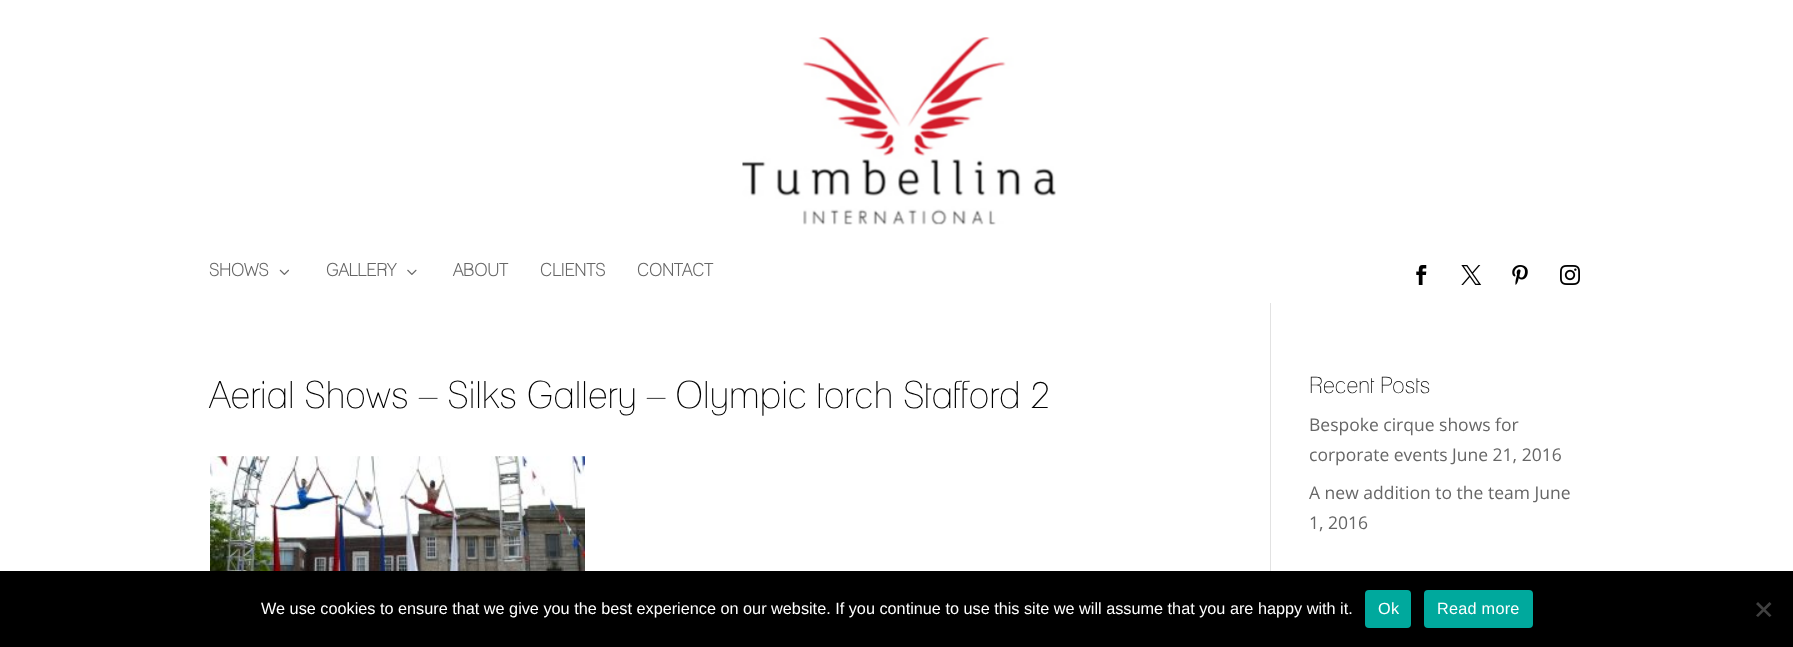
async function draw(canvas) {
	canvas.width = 1793;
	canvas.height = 647;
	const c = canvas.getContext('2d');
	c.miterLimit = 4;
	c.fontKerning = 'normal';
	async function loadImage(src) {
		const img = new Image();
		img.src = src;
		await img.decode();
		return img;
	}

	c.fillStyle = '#fff';
	c.fillRect(0, 0, 1793, 647);
	c.drawImage(await loadImage('img1.png'), 742, 37, 314, 188);
	c.font = 'bold 17.5px "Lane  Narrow"';
	c.fillStyle = '#666';
	c.fillText('SHOWS', 209, 276);
	c.drawImage(await loadImage('img2.png'), 279, 269, 10, 6);
	c.fillText('GALLERY', 326, 276);
	c.drawImage(await loadImage('img3.png'), 407, 269, 10, 6);
	for (const [text, x, y] of [
		['ABOUT', 453, 276],
		['CLIENTS', 540, 276],
		['CONTACT', 637, 276],
	]) {
		c.fillText(text, x, y);
	}
	c.drawImage(await loadImage('img4.png'), 1416, 265, 11, 20);
	c.drawImage(await loadImage('img5.png'), 1461, 265, 21, 20);
	c.drawImage(await loadImage('img6.png'), 1512, 265, 16, 20);
	c.drawImage(await loadImage('img7.png'), 1560, 265, 20, 20);
	c.fillStyle = '#e2e2e2';
	c.fillRect(1270, 303, 1, 268);
	c.font = '37.5px "Lane  Narrow"';
	c.fillStyle = '#000';
	c.fillText('Aerial Shows – Silks Gallery – Olympic torch Stafford 2', 209, 408);
	c.drawImage(await loadImage('img8.png'), 210, 456, 375, 115);
	c.font = '22.5px "Lane  Narrow"';
	c.fillText('Recent Posts', 1309, 393);
	c.font = '17.5px Open Sans';
	c.fillStyle = '#666';
	for (const [text, x, y] of [
		['Bespoke cirque shows for', 1309, 431],
		['corporate events June 21, 2016', 1309, 461],
		['A new addition to the team June', 1309, 499],
		['1, 2016', 1309, 529],
	]) {
		c.fillText(text, x, y);
	}
	c.fillStyle = '#000';
	c.fillRect(0, 571, 1793, 76);
	c.font = '16.25px Liberation Sans';
	c.fillStyle = '#fff';
	c.fillText('We use cookies to ensure that we give you the best experience on our website. If you continue to use this site we will assume that you are happy with it.', 261, 614);
	c.fillStyle = '#00a99d';
	c.beginPath();
	c.roundRect(1365, 590, 46, 38, 4);
	c.fill();
	c.letterSpacing = '0.25px';
	c.fillStyle = '#fff';
	c.fillText('Ok', 1378, 614);
	c.fillStyle = '#00a99d';
	c.beginPath();
	c.roundRect(1424, 590, 109, 38, 4);
	c.fill();
	c.fillStyle = '#fff';
	c.fillText('Read more', 1437, 614);
	c.fillStyle = '#404040';
	c.beginPath();
	c.moveTo(1769.5, 602);
	c.lineTo(1771.5, 604);
	c.lineTo(1758, 617);
	c.lineTo(1756, 615.5);
	c.closePath();
	c.fill();
	c.beginPath();
	c.moveTo(1756, 604);
	c.lineTo(1758, 602);
	c.lineTo(1771.5, 615.5);
	c.lineTo(1769.5, 617);
	c.closePath();
	c.fill();
}

draw(document.querySelector('canvas'));
